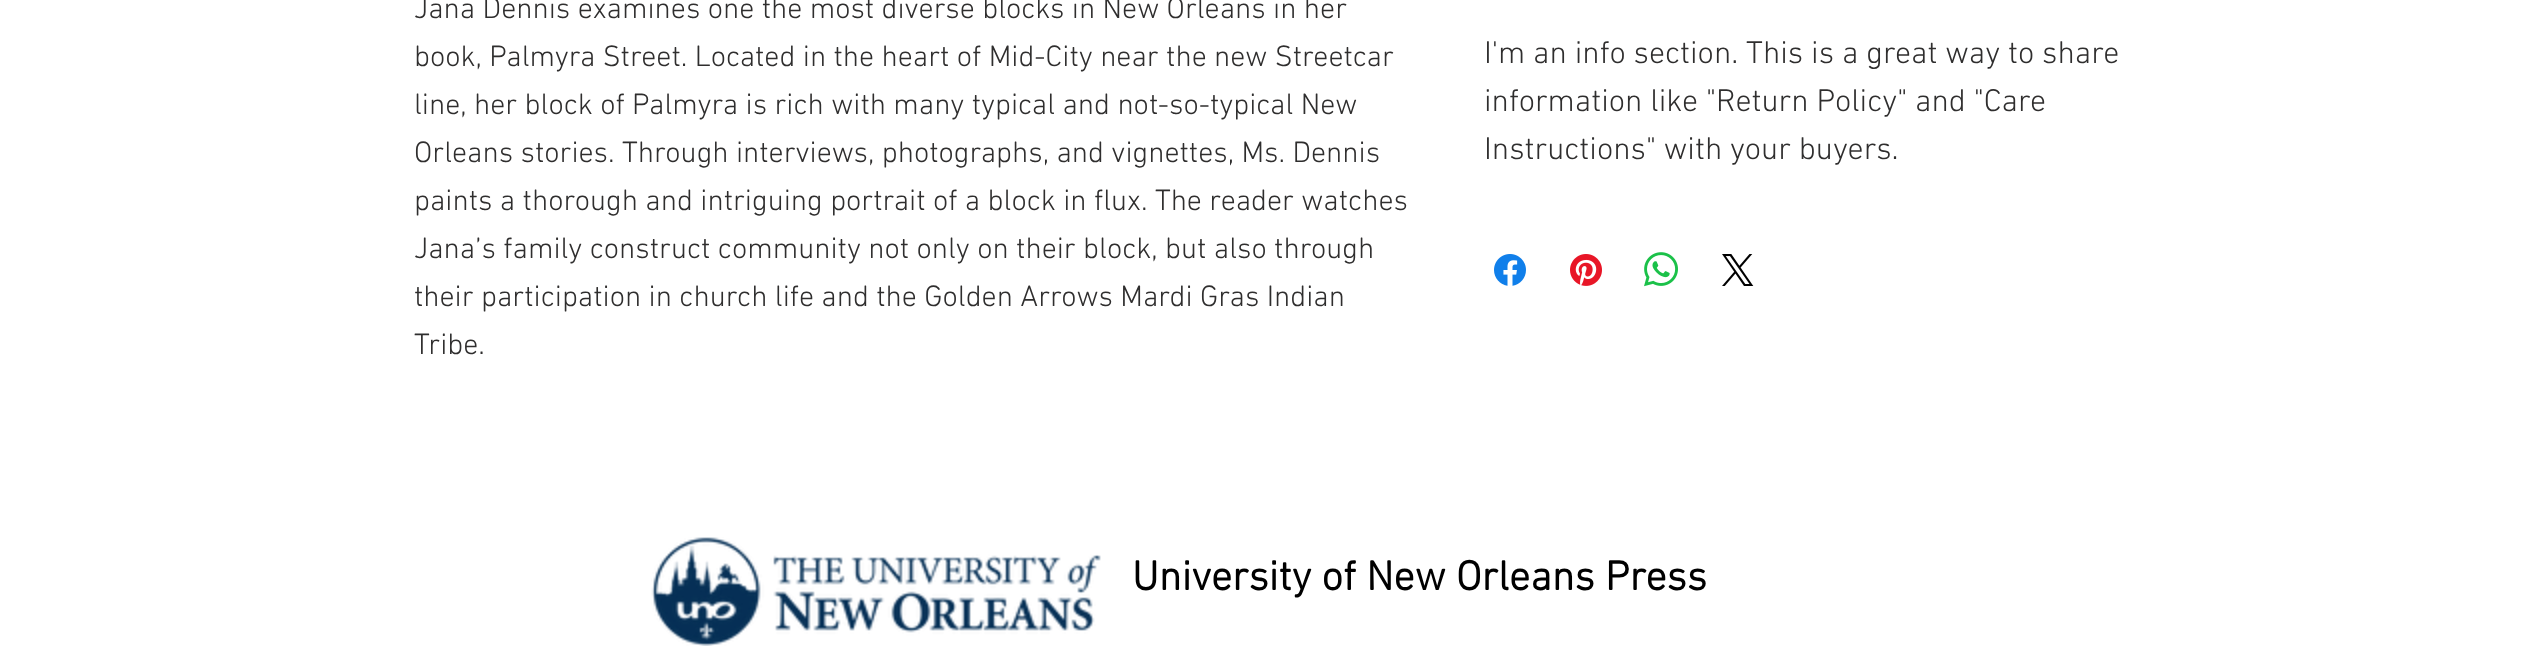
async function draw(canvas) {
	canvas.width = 2533;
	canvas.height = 666;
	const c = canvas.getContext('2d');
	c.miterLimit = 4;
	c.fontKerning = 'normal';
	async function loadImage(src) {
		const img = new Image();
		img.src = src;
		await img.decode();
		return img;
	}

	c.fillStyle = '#fff';
	c.fillRect(0, 0, 2533, 666);
	c.font = '300 30px "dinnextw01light"';
	c.fillStyle = '#2f2e2e';
	for (const [text, x, y] of [
		['Jana Dennis examines one the most diverse blocks in New Orleans in her', 414, 18],
		['book, Palmyra Street. Located in the heart of Mid-City near the new Streetcar', 414, 66],
		['line, her block of Palmyra is rich with many typical and not-so-typical New', 414, 114],
		['Orleans stories. Through interviews, photographs, and vignettes, Ms. Dennis', 414, 162],
		['paints a thorough and intriguing portrait of a block in flux. The reader watches', 414, 210],
		['Jana’s family construct community not only on their block, but also through', 414, 258],
		['their participation in church life and the Golden Arrows Mardi Gras Indian', 414, 306],
		['Tribe.', 414, 354],
	]) {
		c.fillText(text, x, y);
	}
	c.font = '300 32px "dinnextw01light"';
	for (const [text, x, y] of [
		['I\'m an info section. This is a great way to share', 1484, 63],
		['information like "Return Policy" and "Care', 1484, 111],
		['Instructions" with your buyers.', 1484, 159],
	]) {
		c.fillText(text, x, y);
	}
	c.drawImage(await loadImage('img1.png'), 1494, 254, 32, 32);
	c.drawImage(await loadImage('img2.png'), 1570, 254, 32, 32);
	c.drawImage(await loadImage('img3.png'), 1644, 252, 34, 35);
	c.drawImage(await loadImage('img4.png'), 1722, 254, 32, 32);
	c.drawImage(await loadImage('img5.png'), 651, 537, 450, 109);
	c.font = 'bold 42px "dinnextw01light"';
	c.fillStyle = '#000';
	c.fillText('University of New Orleans Press', 1132, 590);
}

draw(document.querySelector('canvas'));
